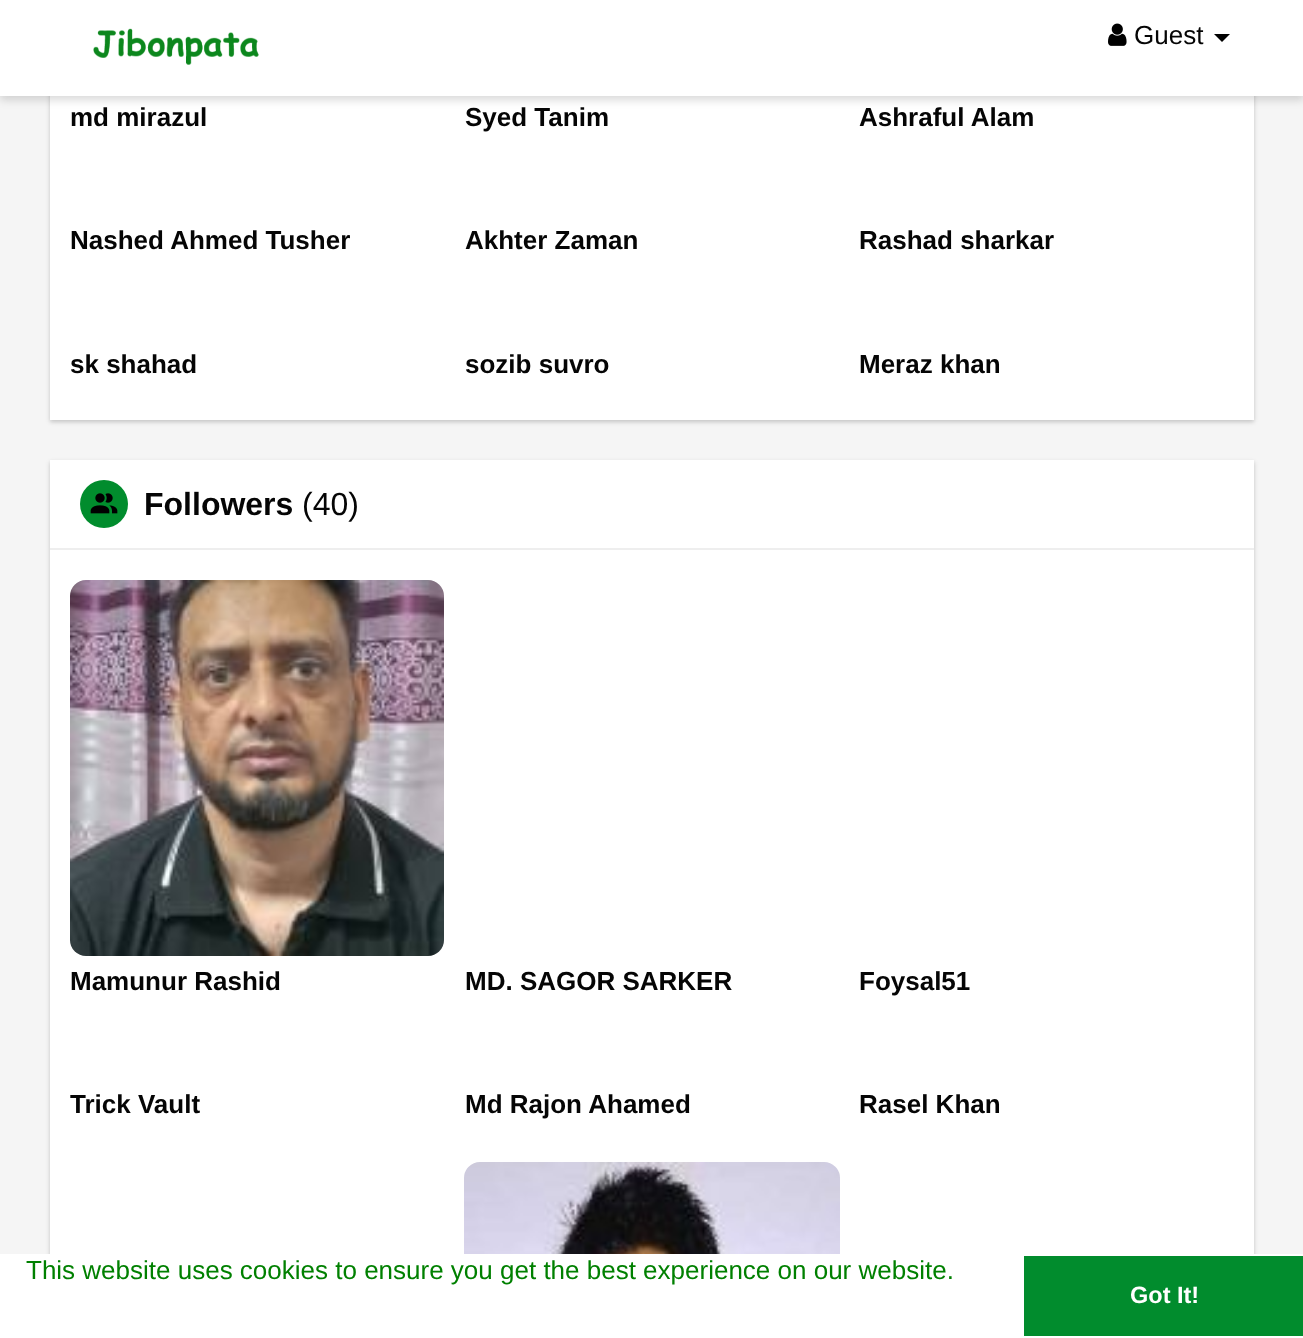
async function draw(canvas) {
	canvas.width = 1303;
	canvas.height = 1338;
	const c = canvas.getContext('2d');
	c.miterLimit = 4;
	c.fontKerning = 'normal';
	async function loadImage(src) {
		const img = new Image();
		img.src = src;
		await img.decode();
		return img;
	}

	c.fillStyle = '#f5f5f5';
	c.fillRect(0, 0, 1303, 1338);
	c.fillStyle = '#00000033';
	c.filter = 'blur(2px)';
	c.beginPath();
	c.rect(50, -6, 1204, 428);
	c.fill();
	c.filter = 'none';
	c.fillStyle = '#fff';
	c.fillRect(50, 96, 1204, 324);
	c.fillStyle = '#00000026';
	c.filter = 'blur(4px)';
	c.beginPath();
	c.rect(0, 4, 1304, 96);
	c.fill();
	c.filter = 'none';
	c.fillStyle = '#fff';
	c.fillRect(0, 0, 1303, 96);
	c.drawImage(await loadImage('img1.png'), 93, 28, 166, 37);
	c.drawImage(await loadImage('img2.png'), 1108, 23, 19, 23);
	c.font = '26px Liberation Sans';
	c.fillStyle = '#050505';
	c.fillText('Guest', 1134, 44);
	c.fillStyle = '#000';
	c.beginPath();
	c.moveTo(1214, 34);
	c.lineTo(1230, 34);
	c.lineTo(1222, 42);
	c.closePath();
	c.fill();
	c.font = 'bold 26px Liberation Sans';
	c.fillStyle = '#050505';
	for (const [text, x, y] of [
		['md mirazul', 70, 126],
		['Syed Tanim', 465, 126],
		['Ashraful Alam', 859, 126],
		['Nashed Ahmed Tusher', 70, 249],
		['Akhter Zaman', 465, 249],
		['Rashad sharkar', 859, 249],
		['sk shahad', 70, 373],
		['sozib suvro', 465, 373],
		['Meraz khan', 859, 373],
	]) {
		c.fillText(text, x, y);
	}
	c.fillStyle = '#00000033';
	c.filter = 'blur(2px)';
	c.beginPath();
	c.rect(50, 462, 1204, 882);
	c.fill();
	c.filter = 'none';
	c.fillStyle = '#fff';
	c.fillRect(50, 460, 1204, 794);
	c.fillStyle = '#eee';
	c.fillRect(50, 548, 1204, 2);
	c.fillStyle = '#018c2d';
	c.beginPath();
	c.arc(104, 504, 24, 0, 2 * Math.PI);
	c.fill();
	c.drawImage(await loadImage('img3.png'), 90, 493, 28, 21);
	c.font = 'bold 32px Liberation Sans';
	c.fillStyle = '#050505';
	c.fillText('Followers', 144, 515);
	c.font = '32px Liberation Sans';
	c.fillText('(40)', 302, 515);
	c.drawImage(await loadImage('img4.png'), 70, 580, 374, 376);
	c.font = 'bold 26px Liberation Sans';
	for (const [text, x, y] of [
		['Mamunur Rashid', 70, 990],
		['MD. SAGOR SARKER', 465, 990],
		['Foysal51', 859, 990],
	]) {
		c.fillText(text, x, y);
	}
	c.save();
	c.beginPath();
	c.rect(70, 1090, 374, 32);
	c.clip();
	c.fillText('Trick Vault', 70, 1113);
	c.restore();
	c.fillText('Md Rajon Ahamed', 465, 1113);
	c.fillText('Rasel Khan', 859, 1113);
	c.drawImage(await loadImage('img5.png'), 464, 1162, 376, 92);
	c.fillStyle = '#fff';
	c.fillRect(0, 1254, 1303, 84);
	c.font = '26px Liberation Sans';
	c.fillStyle = '#008000';
	c.fillText('This website uses cookies to ensure you get the best experience on our website.', 26, 1279);
	c.fillStyle = '#018c2d';
	c.fillRect(1024, 1256, 279, 80);
	c.font = 'bold 23.5px Liberation Sans';
	c.fillStyle = '#fff';
	c.fillText('Got It!', 1130, 1303);
}

draw(document.querySelector('canvas'));
